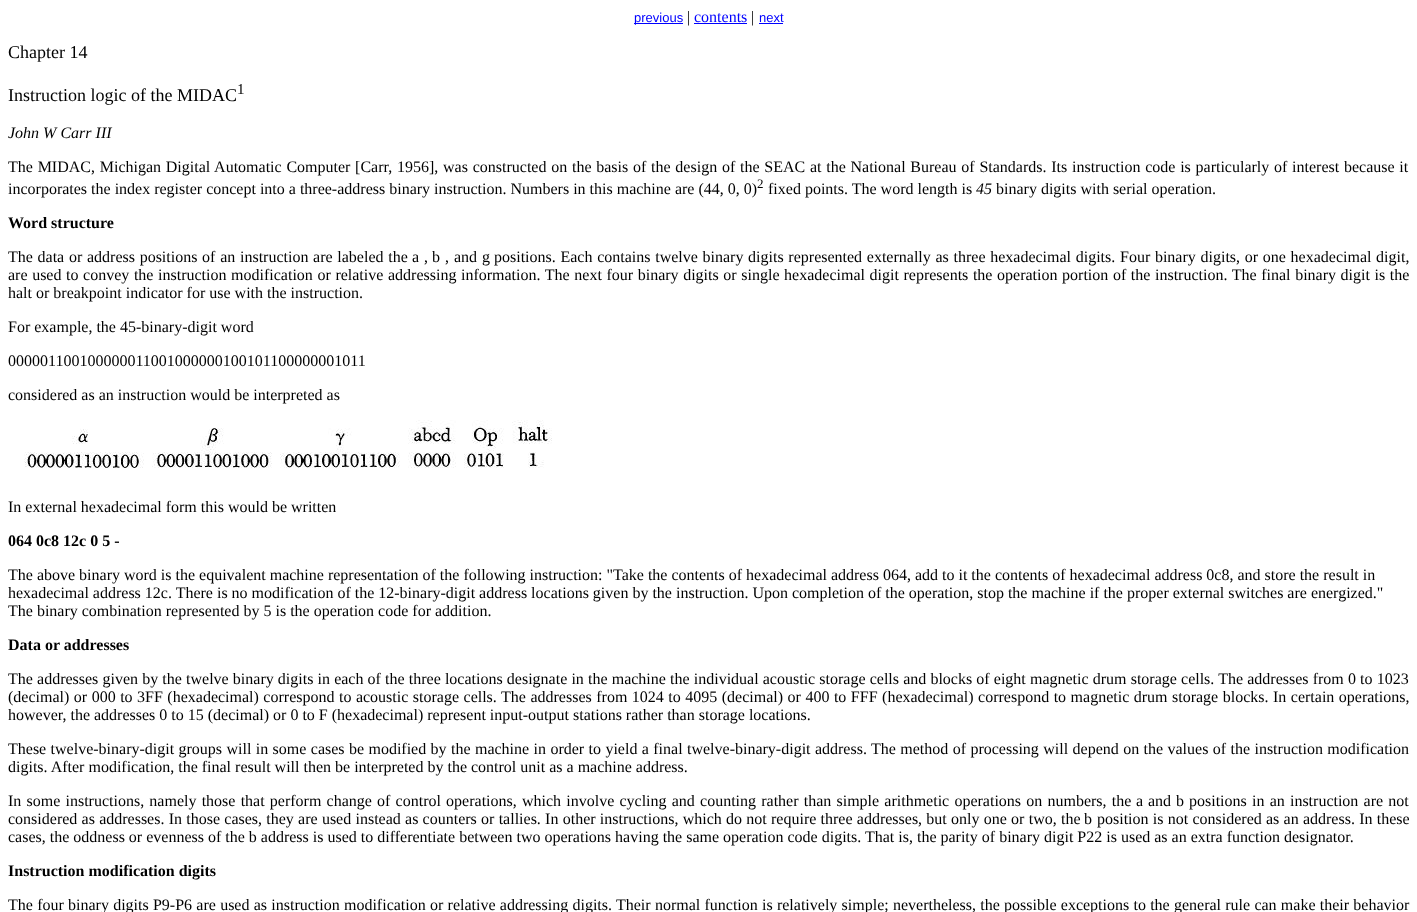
async function draw(canvas) {
	canvas.width = 1417;
	canvas.height = 912;
	const c = canvas.getContext('2d');
	c.miterLimit = 4;
	c.fontKerning = 'normal';
	async function loadImage(src) {
		const img = new Image();
		img.src = src;
		await img.decode();
		return img;
	}

	c.fillStyle = '#fff';
	c.fillRect(0, 0, 1417, 912);
	c.fillStyle = '#00f';
	c.fillRect(634, 23, 49, 1);
	c.font = '13px Liberation Sans';
	c.fillText('previous', 634, 22);
	c.font = '16px Liberation Serif';
	c.fillStyle = '#000';
	c.fillText('|', 687, 22);
	c.fillStyle = '#00f';
	c.fillText('contents', 694, 22);
	c.fillRect(694, 23, 53, 1);
	c.fillStyle = '#000';
	c.fillText('|', 751, 22);
	c.font = '13px Liberation Sans';
	c.fillStyle = '#00f';
	c.fillText('next', 759, 22);
	c.fillRect(759, 23, 24, 1);
	c.font = '18px Liberation Serif';
	c.fillStyle = '#000';
	c.fillText('Chapter 14', 8, 58);
	c.fillText('Instruction logic of the MIDAC', 8, 101);
	c.font = '15px Liberation Serif';
	c.fillText('1', 237, 94);
	c.font = 'italic 16px Liberation Serif';
	c.fillText('John W Carr III', 8, 138);
	c.wordSpacing = '0.75px';
	c.font = '16px Liberation Serif';
	c.fillText('The MIDAC, Michigan Digital Automatic Computer [Carr, 1956], was constructed on the basis of the design of the SEAC at the National Bureau of Standards. Its instruction code is particularly of interest because it', 8, 172);
	c.wordSpacing = '0px';
	c.fillText('incorporates the index register concept into a three-address binary instruction. Numbers in this machine are (44, 0, 0)', 8, 194);
	c.font = '13px Liberation Serif';
	c.fillText('2', 757, 188);
	c.font = '16px Liberation Serif';
	c.fillText('fixed points. The word length is', 768, 194);
	c.font = 'italic 16px Liberation Serif';
	c.fillText('45', 976, 194);
	c.font = '16px Liberation Serif';
	c.fillText('binary digits with serial operation.', 996, 194);
	c.font = 'bold 16px Liberation Serif';
	c.fillText('Word structure', 8, 228);
	c.wordSpacing = '0.7px';
	c.font = '16px Liberation Serif';
	c.fillText('The data or address positions of an instruction are labeled the', 8, 262);
	c.wordSpacing = '0px';
	for (const [text, x, y] of [
		['a', 412, 262],
		[',', 424, 262],
		['b', 432, 262],
	]) {
		c.fillText(text, x, y);
	}
	c.wordSpacing = '1px';
	c.fillText(', and', 445, 262);
	c.wordSpacing = '0px';
	c.fillText('g', 482, 262);
	c.wordSpacing = '0.7px';
	c.fillText('positions. Each contains twelve binary digits represented externally as three hexadecimal digits. Four binary digits, or one hexadecimal digit,', 494, 262);
	c.wordSpacing = '0.6px';
	c.fillText('are used to convey the instruction modification or relative addressing information. The next four binary digits or single hexadecimal digit represents the operation portion of the instruction. The final binary digit is the', 8, 280);
	c.wordSpacing = '0px';
	for (const [text, x, y] of [
		['halt or breakpoint indicator for use with the instruction.', 8, 298],
		['For example, the 45-binary-digit word', 8, 332],
		['000001100100000011001000000100101100000001011', 8, 366],
		['considered as an instruction would be interpreted as', 8, 400],
	]) {
		c.fillText(text, x, y);
	}
	c.drawImage(await loadImage('img1.png'), 24, 420, 528, 48);
	c.fillText('In external hexadecimal form this would be written', 8, 512);
	c.font = 'bold 16px Liberation Serif';
	c.fillText('064 0c8 12c 0 5 -', 8, 546);
	c.font = '16px Liberation Serif';
	for (const [text, x, y] of [
		['The above binary word is the equivalent machine representation of the following instruction: "Take the contents of hexadecimal address 064, add to it the contents of hexadecimal address 0c8, and store the result in', 8, 580],
		['hexadecimal address 12c. There is no modification of the 12-binary-digit address locations given by the instruction. Upon completion of the operation, stop the machine if the proper external switches are energized."', 8, 598],
		['The binary combination represented by 5 is the operation code for addition.', 8, 616],
	]) {
		c.fillText(text, x, y);
	}
	c.font = 'bold 16px Liberation Serif';
	c.fillText('Data or addresses', 8, 650);
	c.wordSpacing = '0.15px';
	c.font = '16px Liberation Serif';
	c.fillText('The addresses given by the twelve binary digits in each of the three locations designate in the machine the individual acoustic storage cells and blocks of eight magnetic drum storage cells. The addresses from 0 to 1023', 8, 684);
	c.wordSpacing = '0.5px';
	c.fillText('(decimal) or 000 to 3FF (hexadecimal) correspond to acoustic storage cells. The addresses from 1024 to 4095 (decimal) or 400 to FFF (hexadecimal) correspond to magnetic drum storage blocks. In certain operations,', 8, 702);
	c.wordSpacing = '0px';
	c.fillText('however, the addresses 0 to 15 (decimal) or 0 to F (hexadecimal) represent input-output stations rather than storage locations.', 8, 720);
	c.wordSpacing = '0.4px';
	c.fillText('These twelve-binary-digit groups will in some cases be modified by the machine in order to yield a final twelve-binary-digit address. The method of processing will depend on the values of the instruction modification', 8, 754);
	c.wordSpacing = '0px';
	c.fillText('digits. After modification, the final result will then be interpreted by the control unit as a machine address.', 8, 772);
	c.wordSpacing = '1.2px';
	c.fillText('In some instructions, namely those that perform change of control operations, which involve cycling and counting rather than simple arithmetic operations on numbers, the', 8, 806);
	c.wordSpacing = '0px';
	for (const [text, x, y] of [
		['a', 1136, 806],
		['and', 1148, 806],
		['b', 1176, 806],
	]) {
		c.fillText(text, x, y);
	}
	c.wordSpacing = '1.2px';
	c.fillText('positions in an instruction are not', 1189, 806);
	c.wordSpacing = '0.25px';
	c.fillText('considered as addresses. In those cases, they are used instead as counters or tallies. In other instructions, which do not require three addresses, but only one or two, the', 8, 824);
	c.wordSpacing = '0px';
	c.fillText('b', 1084, 824);
	c.wordSpacing = '0.25px';
	c.fillText('position is not considered as an address. In these', 1097, 824);
	c.wordSpacing = '0px';
	c.fillText('cases, the oddness or evenness of the b address is used to differentiate between two operations having the same operation code digits. That is, the parity of binary digit P22 is used as an extra function designator.', 8, 842);
	c.font = 'bold 16px Liberation Serif';
	c.fillText('Instruction modification digits', 8, 876);
	c.wordSpacing = '0.25px';
	c.font = '16px Liberation Serif';
	c.fillText('The four binary digits P9-P6 are used as instruction modification or relative addressing digits. Their normal function is relatively simple; nevertheless, the possible exceptions to the general rule can make their behavior', 8, 910);
}

draw(document.querySelector('canvas'));
